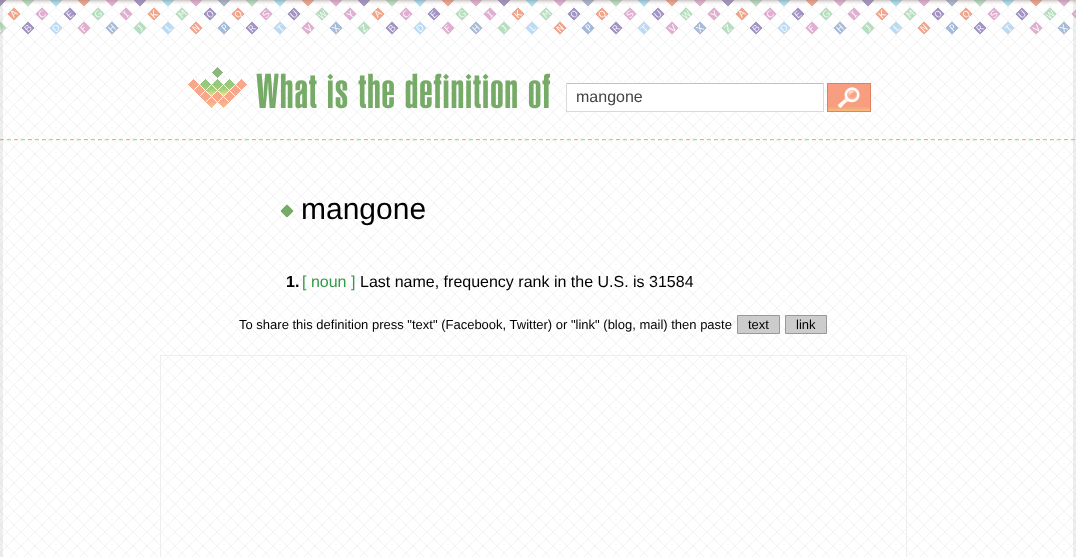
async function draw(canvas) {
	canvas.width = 1076;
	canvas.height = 557;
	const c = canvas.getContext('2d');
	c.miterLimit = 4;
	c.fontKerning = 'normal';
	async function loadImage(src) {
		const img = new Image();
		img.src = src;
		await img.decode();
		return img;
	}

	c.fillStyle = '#fff';
	c.fillRect(0, 0, 1076, 557);
	c.drawImage(await loadImage('img1.png'), 0, 4, 1076, 553);
	c.drawImage(await loadImage('img2.png'), 0, 0, 1076, 34);
	c.drawImage(await loadImage('img5.png'), 0, 139, 1075, 2);
	c.fillStyle = '#837c7c21';
	c.fillRect(0, 0, 3, 557);
	c.drawImage(await loadImage('img3.png'), 188, 67, 59, 41);
	c.letterSpacing = '1px';
	c.font = '48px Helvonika';
	c.fillStyle = '#76aa67';
	c.fillText('What is the definition of', 256, 108);
	for (const [x, y, w, h, color] of [
		[567, 84, 256, 27, '#fff'],
		[566, 83, 258, 1, '#c0c0c0'],
		[823, 83, 1, 29, '#d9d9d9'],
		[566, 111, 258, 1, '#d9d9d9'],
		[566, 83, 1, 29, '#d9d9d9'],
	]) {
		c.fillStyle = color;
		c.fillRect(x, y, w, h);
	}
	c.letterSpacing = '0px';
	c.font = '16px Liberation Sans';
	c.fillStyle = '#444';
	c.fillText('mangone', 576, 102);
	c.drawImage(await loadImage('img4.png'), 827, 83, 44, 29);
	c.drawImage(await loadImage('img6.png'), 280, 204, 14, 14);
	c.font = '30px Liberation Sans';
	c.fillStyle = '#000';
	c.fillText('mangone', 301, 219);
	c.font = 'bold 16px Liberation Sans';
	c.fillText('1.', 286, 287);
	c.font = '16px Liberation Sans';
	c.fillStyle = '#349946';
	c.fillText('[ noun ]', 302, 287);
	c.fillStyle = '#000';
	c.fillText('Last name, frequency rank in the U.S. is 31584', 360, 287);
	c.font = '13px Liberation Sans';
	c.fillText('To share this definition press "text" (Facebook, Twitter) or "link" (blog, mail) then paste', 239, 329);
	c.fillStyle = '#ccc';
	c.beginPath();
	c.rect(737.5, 315.5, 42, 18);
	c.fill();
	c.strokeStyle = '#999';
	c.stroke();
	c.fillStyle = '#000';
	c.fillText('text', 748, 329);
	c.fillStyle = '#ccc';
	c.beginPath();
	c.rect(785.5, 315.5, 41, 18);
	c.fill();
	c.stroke();
	c.fillStyle = '#000';
	c.fillText('link', 796, 329);
	c.strokeStyle = '#eee';
	c.strokeRect(160.5, 355.5, 746, 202);
	c.fillStyle = '#837c7c21';
	c.fillRect(1073, 0, 3, 557);
}

draw(document.querySelector('canvas'));
